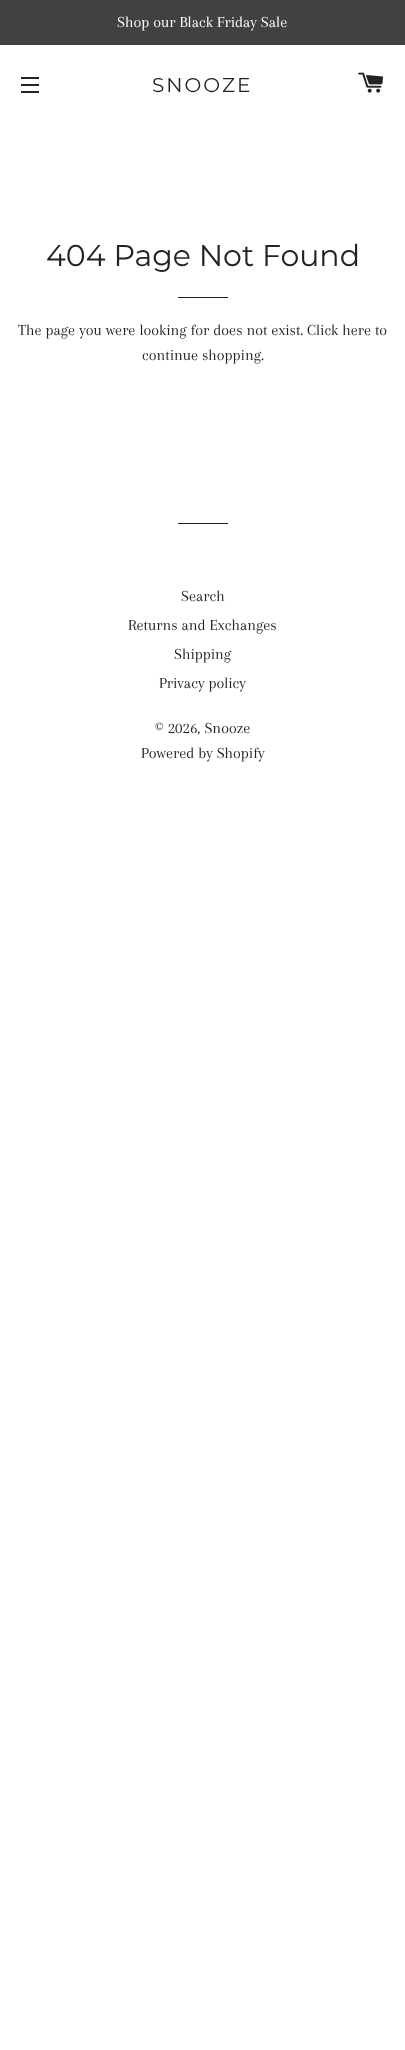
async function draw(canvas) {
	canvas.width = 405;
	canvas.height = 2050;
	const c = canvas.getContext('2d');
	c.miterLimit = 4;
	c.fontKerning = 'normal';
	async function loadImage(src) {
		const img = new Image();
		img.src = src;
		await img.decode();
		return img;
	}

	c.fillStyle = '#fff';
	c.fillRect(0, 0, 405, 2050);
	c.fillStyle = '#404242';
	c.fillRect(0, 0, 405, 45);
	c.font = '16px Arapey';
	c.fillStyle = '#fff';
	c.fillText('Shop our Black Friday Sale', 117, 27);
	for (const [x, y, w, h, color] of [
		[21, 77, 18, 2, '#222323'],
		[21, 84, 18, 2, '#222323'],
		[21, 91, 18, 2, '#222323'],
	]) {
		c.fillStyle = color;
		c.fillRect(x, y, w, h);
	}
	c.letterSpacing = '2px';
	c.font = '100 20px Montserrat';
	c.fillText('SNOOZE', 152, 92);
	c.drawImage(await loadImage('img1.png'), 358, 72, 26, 21);
	c.letterSpacing = '0px';
	c.font = '100 30px Montserrat';
	c.fillText('404 Page Not Found', 46, 266);
	c.fillStyle = '#1c1d1d';
	c.fillRect(178, 297, 50, 1);
	c.font = '16px Arapey';
	c.fillStyle = '#222323';
	c.fillText('The page you were looking for does not exist.', 18, 335);
	c.fillStyle = '#1c1d1d';
	c.fillText('Click here', 307, 335);
	c.fillStyle = '#222323';
	c.fillText('to', 375, 335);
	c.fillText('continue shopping.', 142, 360);
	c.fillStyle = '#1c1d1d';
	c.fillRect(178, 523, 50, 1);
	c.fillStyle = '#222323';
	for (const [text, x, y] of [
		['Search', 181, 601],
		['Returns and Exchanges', 128, 630],
		['Shipping', 174, 659],
		['Privacy policy', 159, 688],
		['© 2026, Snooze', 155, 733],
		['Powered by Shopify', 141, 758],
	]) {
		c.fillText(text, x, y);
	}
}

draw(document.querySelector('canvas'));
